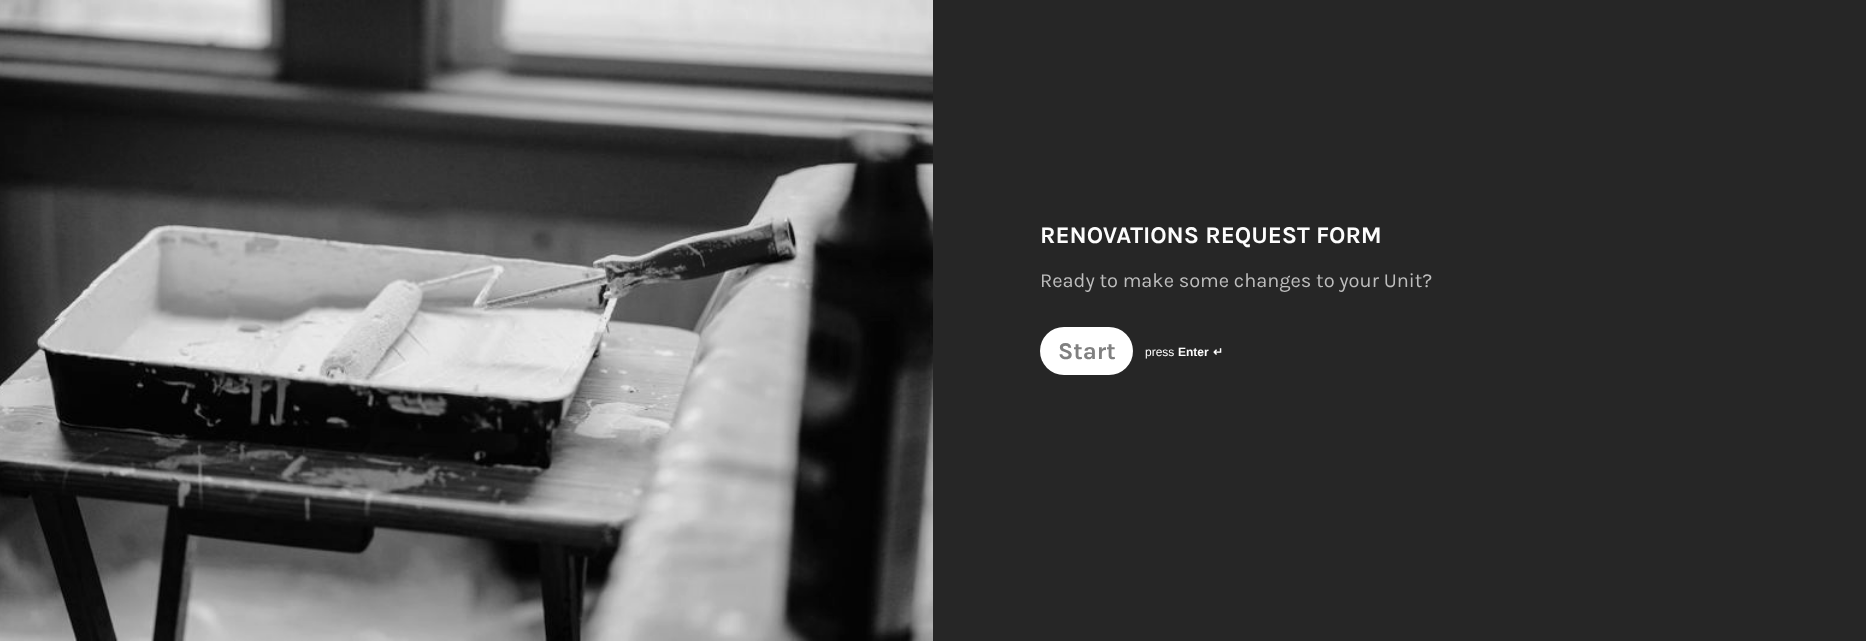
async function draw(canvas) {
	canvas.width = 1866;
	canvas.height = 641;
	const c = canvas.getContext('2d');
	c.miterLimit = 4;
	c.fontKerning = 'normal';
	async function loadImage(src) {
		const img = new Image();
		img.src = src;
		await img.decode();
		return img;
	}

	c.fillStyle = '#262626';
	c.fillRect(0, 0, 1866, 641);
	c.drawImage(await loadImage('img1.png'), 0, 0, 933, 641);
	c.font = 'bold 24px Karla';
	c.fillStyle = '#fdfdfd';
	c.fillText('RENOVATIONS REQUEST FORM', 1040, 243);
	c.font = '20px Karla';
	c.fillStyle = '#bdbdbd';
	c.fillText('Ready to make some changes to your Unit?', 1040, 287);
	c.fillStyle = '#fff';
	c.beginPath();
	c.roundRect(1040, 327, 93, 48, 24);
	c.fill();
	c.font = 'bold 24px Karla';
	c.fillStyle = '#808080';
	c.fillText('Start', 1058, 359);
	c.font = '12px Liberation Sans';
	c.fillStyle = '#fdfdfd';
	c.fillText('press', 1145, 356);
	c.font = 'bold 12px Liberation Sans';
	c.fillText('Enter', 1178, 356);
	c.font = 'bold 12px DejaVu Sans';
	c.fillText('↵', 1213, 356);
}

draw(document.querySelector('canvas'));
